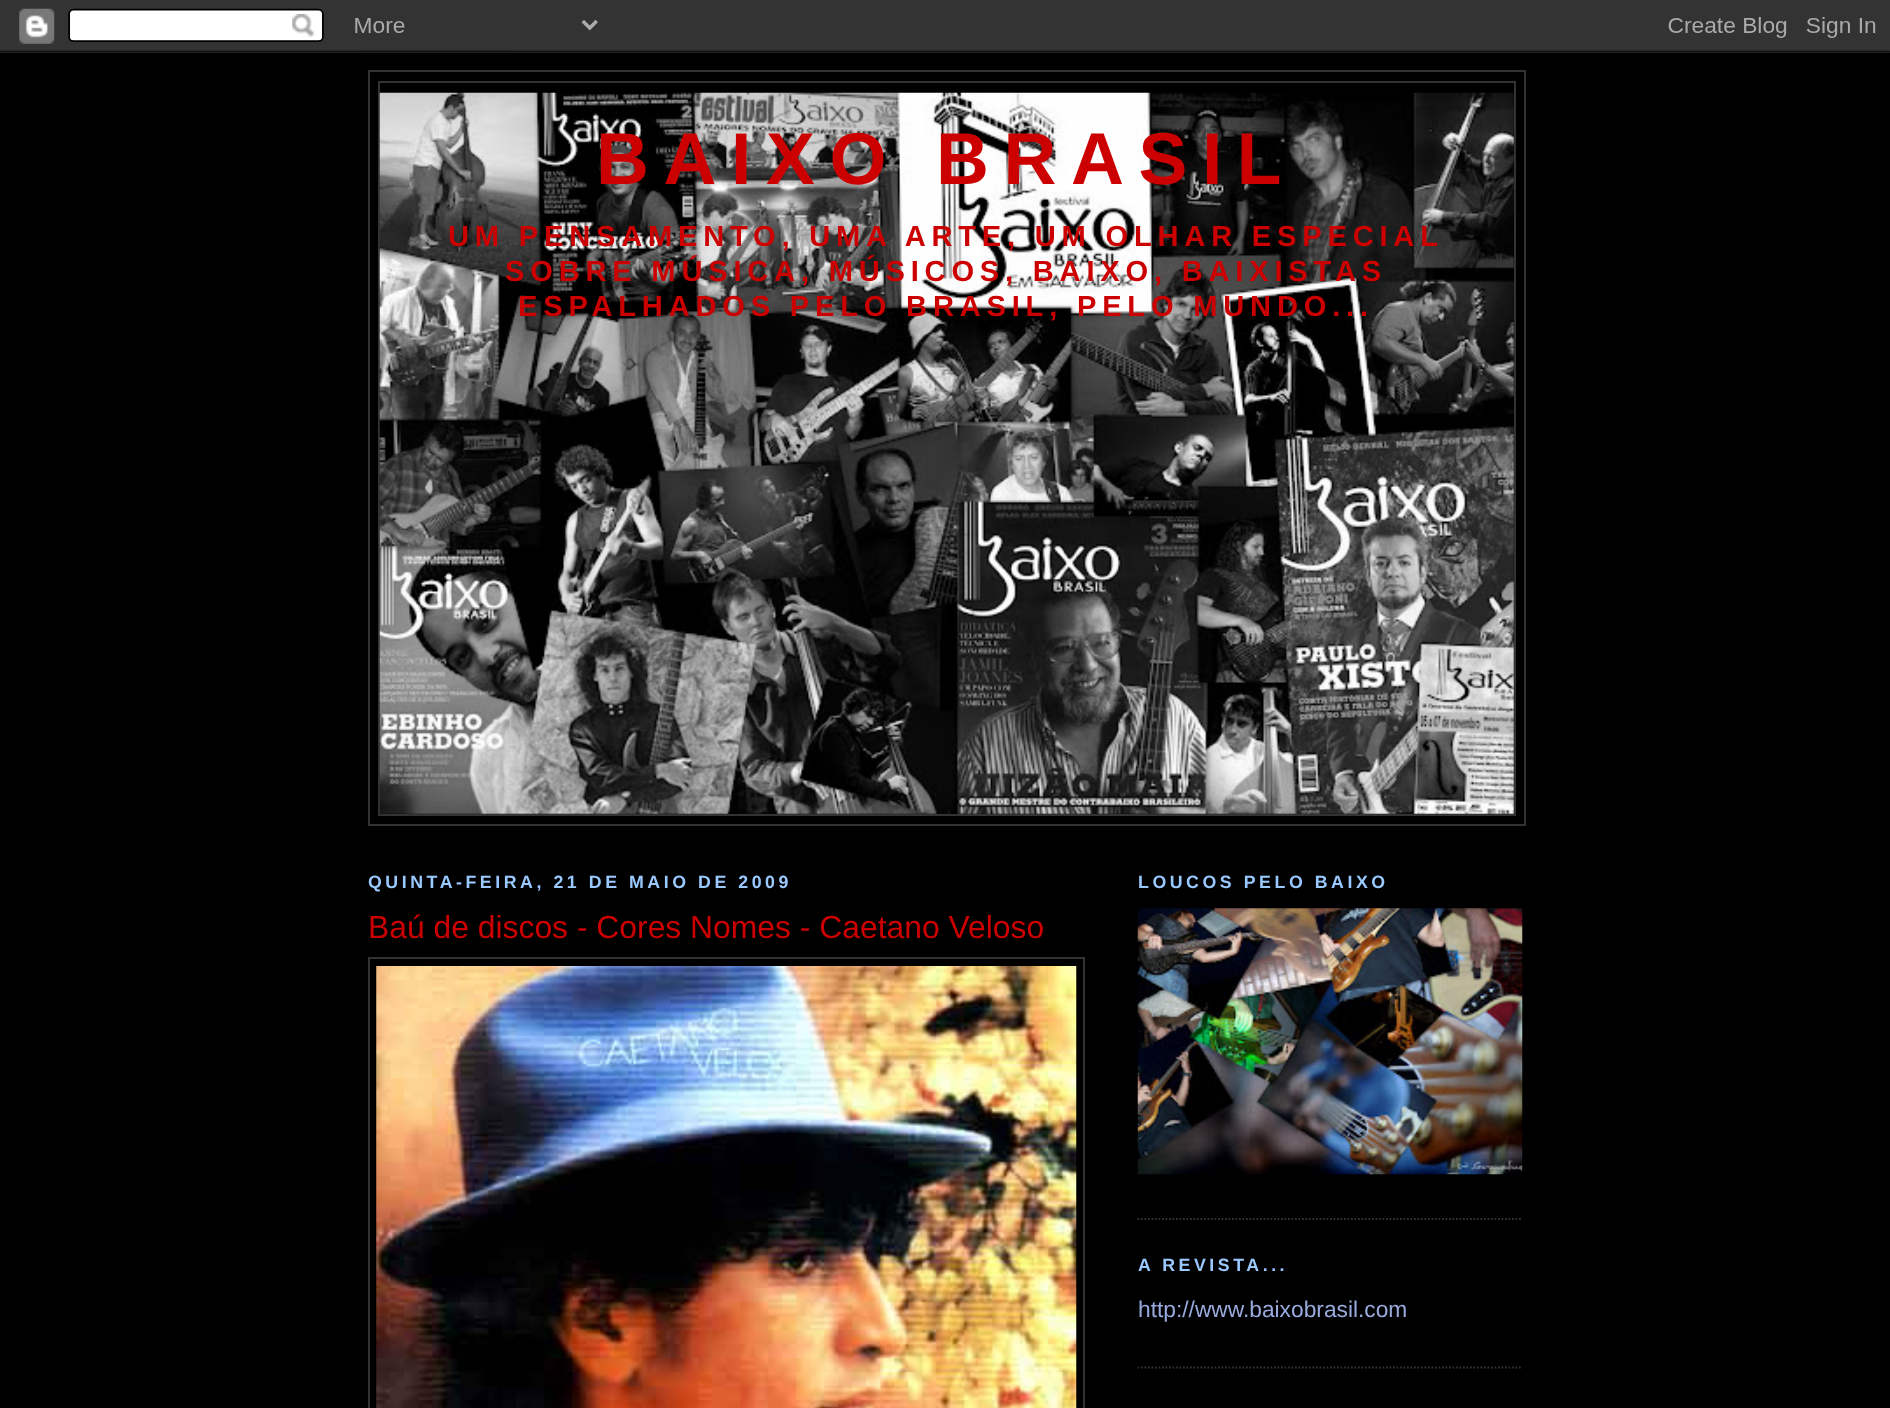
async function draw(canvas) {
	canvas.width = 1890;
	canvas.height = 1408;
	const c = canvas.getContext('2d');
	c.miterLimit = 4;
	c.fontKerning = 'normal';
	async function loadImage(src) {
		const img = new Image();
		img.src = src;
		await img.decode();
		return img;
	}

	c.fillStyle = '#000';
	c.fillRect(0, 0, 1890, 1408);
	c.drawImage(await loadImage('img1.png'), 0, 0, 1890, 53);
	c.strokeStyle = '#333';
	c.lineWidth = 2;
	c.strokeRect(369, 71, 1156, 754);
	c.strokeRect(379, 82, 1136, 733);
	c.drawImage(await loadImage('img2.png'), 379, 92, 1135, 722);
	c.letterSpacing = '14.6px';
	c.font = 'bold 73.25px Liberation Sans';
	c.fillStyle = '#c00';
	c.fillText('BAIXO BRASIL', 596, 184);
	c.letterSpacing = '5.8px';
	c.font = 'bold 29.1px Liberation Sans';
	for (const [text, x, y] of [
		['UM PENSAMENTO, UMA ARTE, UM OLHAR ESPECIAL', 448, 246],
		['SOBRE MÚSICA, MÚSICOS, BAIXO, BAIXISTAS', 505, 281],
		['ESPALHADOS PELO BRASIL, PELO MUNDO...', 518, 316],
	]) {
		c.fillText(text, x, y);
	}
	c.letterSpacing = '3.55px';
	c.font = 'bold 17.75px Liberation Sans';
	c.fillStyle = '#99c9ff';
	c.fillText('QUINTA-FEIRA, 21 DE MAIO DE 2009', 368, 888);
	c.letterSpacing = '0px';
	c.font = '31.85px Liberation Sans';
	c.fillStyle = '#c00';
	c.fillText('Baú de discos - Cores Nomes - Caetano Veloso', 368, 938);
	c.strokeRect(369, 958, 715, 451);
	c.drawImage(await loadImage('img3.png'), 376, 966, 701, 442);
	c.beginPath();
	c.moveTo(1137.5, 1219);
	c.lineTo(1522.5, 1219);
	c.lineWidth = 1.8;
	c.setLineDash([1.75, 1.75]);
	c.stroke();
	c.letterSpacing = '3.55px';
	c.font = 'bold 17.75px Liberation Sans';
	c.fillStyle = '#99c9ff';
	c.fillText('LOUCOS PELO BAIXO', 1138, 888);
	c.drawImage(await loadImage('img4.png'), 1137, 908, 386, 267);
	c.save();
	c.beginPath();
	c.rect(1138, 844, 385, 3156);
	c.clip();
	c.beginPath();
	c.moveTo(1137.5, 1367.5);
	c.lineTo(1522.5, 1367.5);
	c.stroke();
	c.restore();
	c.fillText('A REVISTA...', 1138, 1271);
	c.letterSpacing = '0px';
	c.font = '22.75px Liberation Sans';
	c.fillStyle = '#9ad';
	c.fillText('http://www.baixobrasil.com', 1138, 1317);
}

draw(document.querySelector('canvas'));
